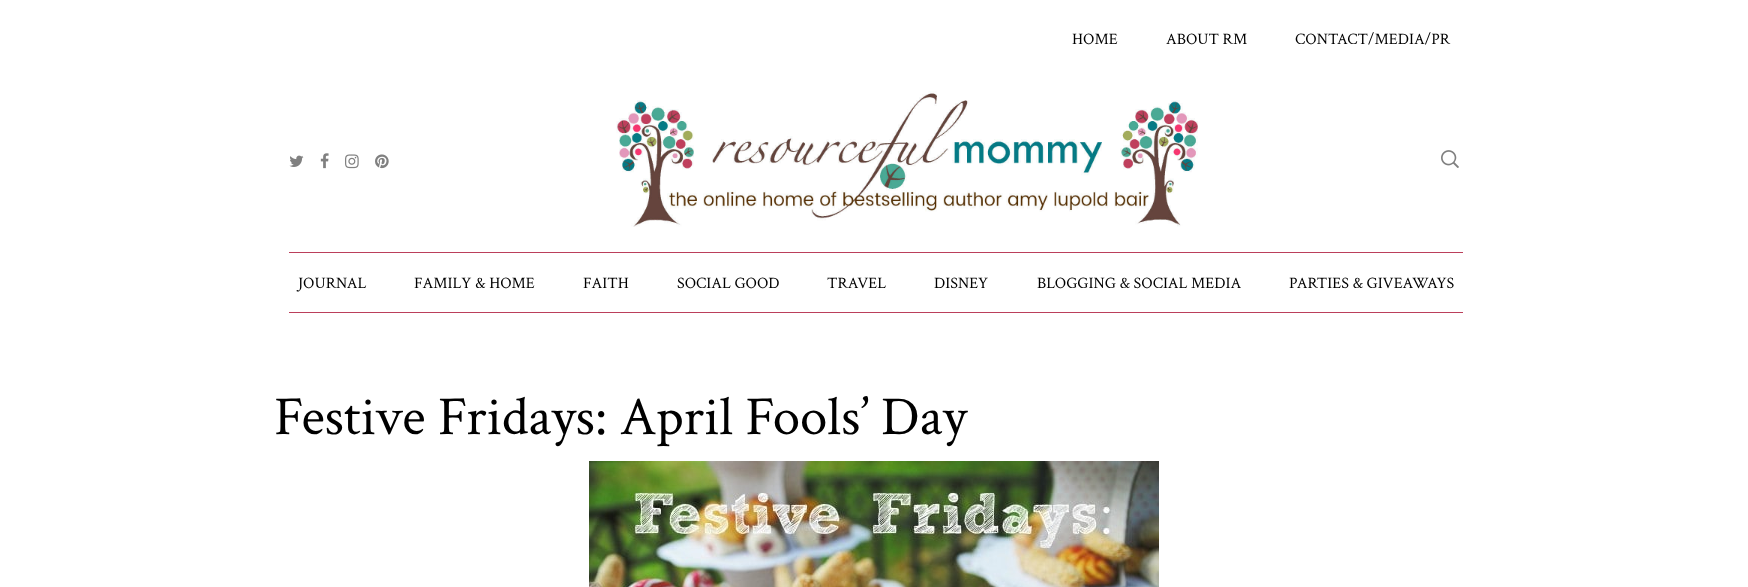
async function draw(canvas) {
	canvas.width = 1748;
	canvas.height = 587;
	const c = canvas.getContext('2d');
	c.miterLimit = 4;
	c.fontKerning = 'normal';
	async function loadImage(src) {
		const img = new Image();
		img.src = src;
		await img.decode();
		return img;
	}

	c.fillStyle = '#fff';
	c.fillRect(0, 0, 1748, 587);
	c.font = '16px Crimson Text';
	c.fillStyle = '#000';
	for (const [text, x, y] of [
		['HOME', 1072, 44],
		['ABOUT RM', 1166, 44],
		['CONTACT/MEDIA/PR', 1295, 44],
	]) {
		c.fillText(text, x, y);
	}
	c.drawImage(await loadImage('img1.png'), 289, 155, 15, 12);
	c.drawImage(await loadImage('img2.png'), 320, 153, 9, 16);
	c.drawImage(await loadImage('img3.png'), 345, 154, 14, 15);
	c.drawImage(await loadImage('img4.png'), 375, 154, 14, 15);
	c.drawImage(await loadImage('img5.png'), 616, 91, 582, 136);
	c.drawImage(await loadImage('img6.png'), 1441, 150, 18, 18);
	c.fillStyle = '#bb3f5b';
	c.fillRect(289, 252, 1174, 1);
	c.fillRect(289, 312, 1174, 1);
	c.fillStyle = '#000';
	for (const [text, x, y] of [
		['JOURNAL', 298, 288],
		['FAMILY & HOME', 414, 288],
		['FAITH', 583, 288],
		['SOCIAL GOOD', 677, 288],
		['TRAVEL', 827, 288],
		['DISNEY', 934, 288],
		['BLOGGING & SOCIAL MEDIA', 1037, 288],
		['PARTIES & GIVEAWAYS', 1289, 288],
	]) {
		c.fillText(text, x, y);
	}
	c.font = '55px Crimson Text';
	c.fillText('Festive Fridays: April Fools’ Day', 274, 434);
	c.drawImage(await loadImage('img7.png'), 589, 461, 570, 126);
}

draw(document.querySelector('canvas'));
